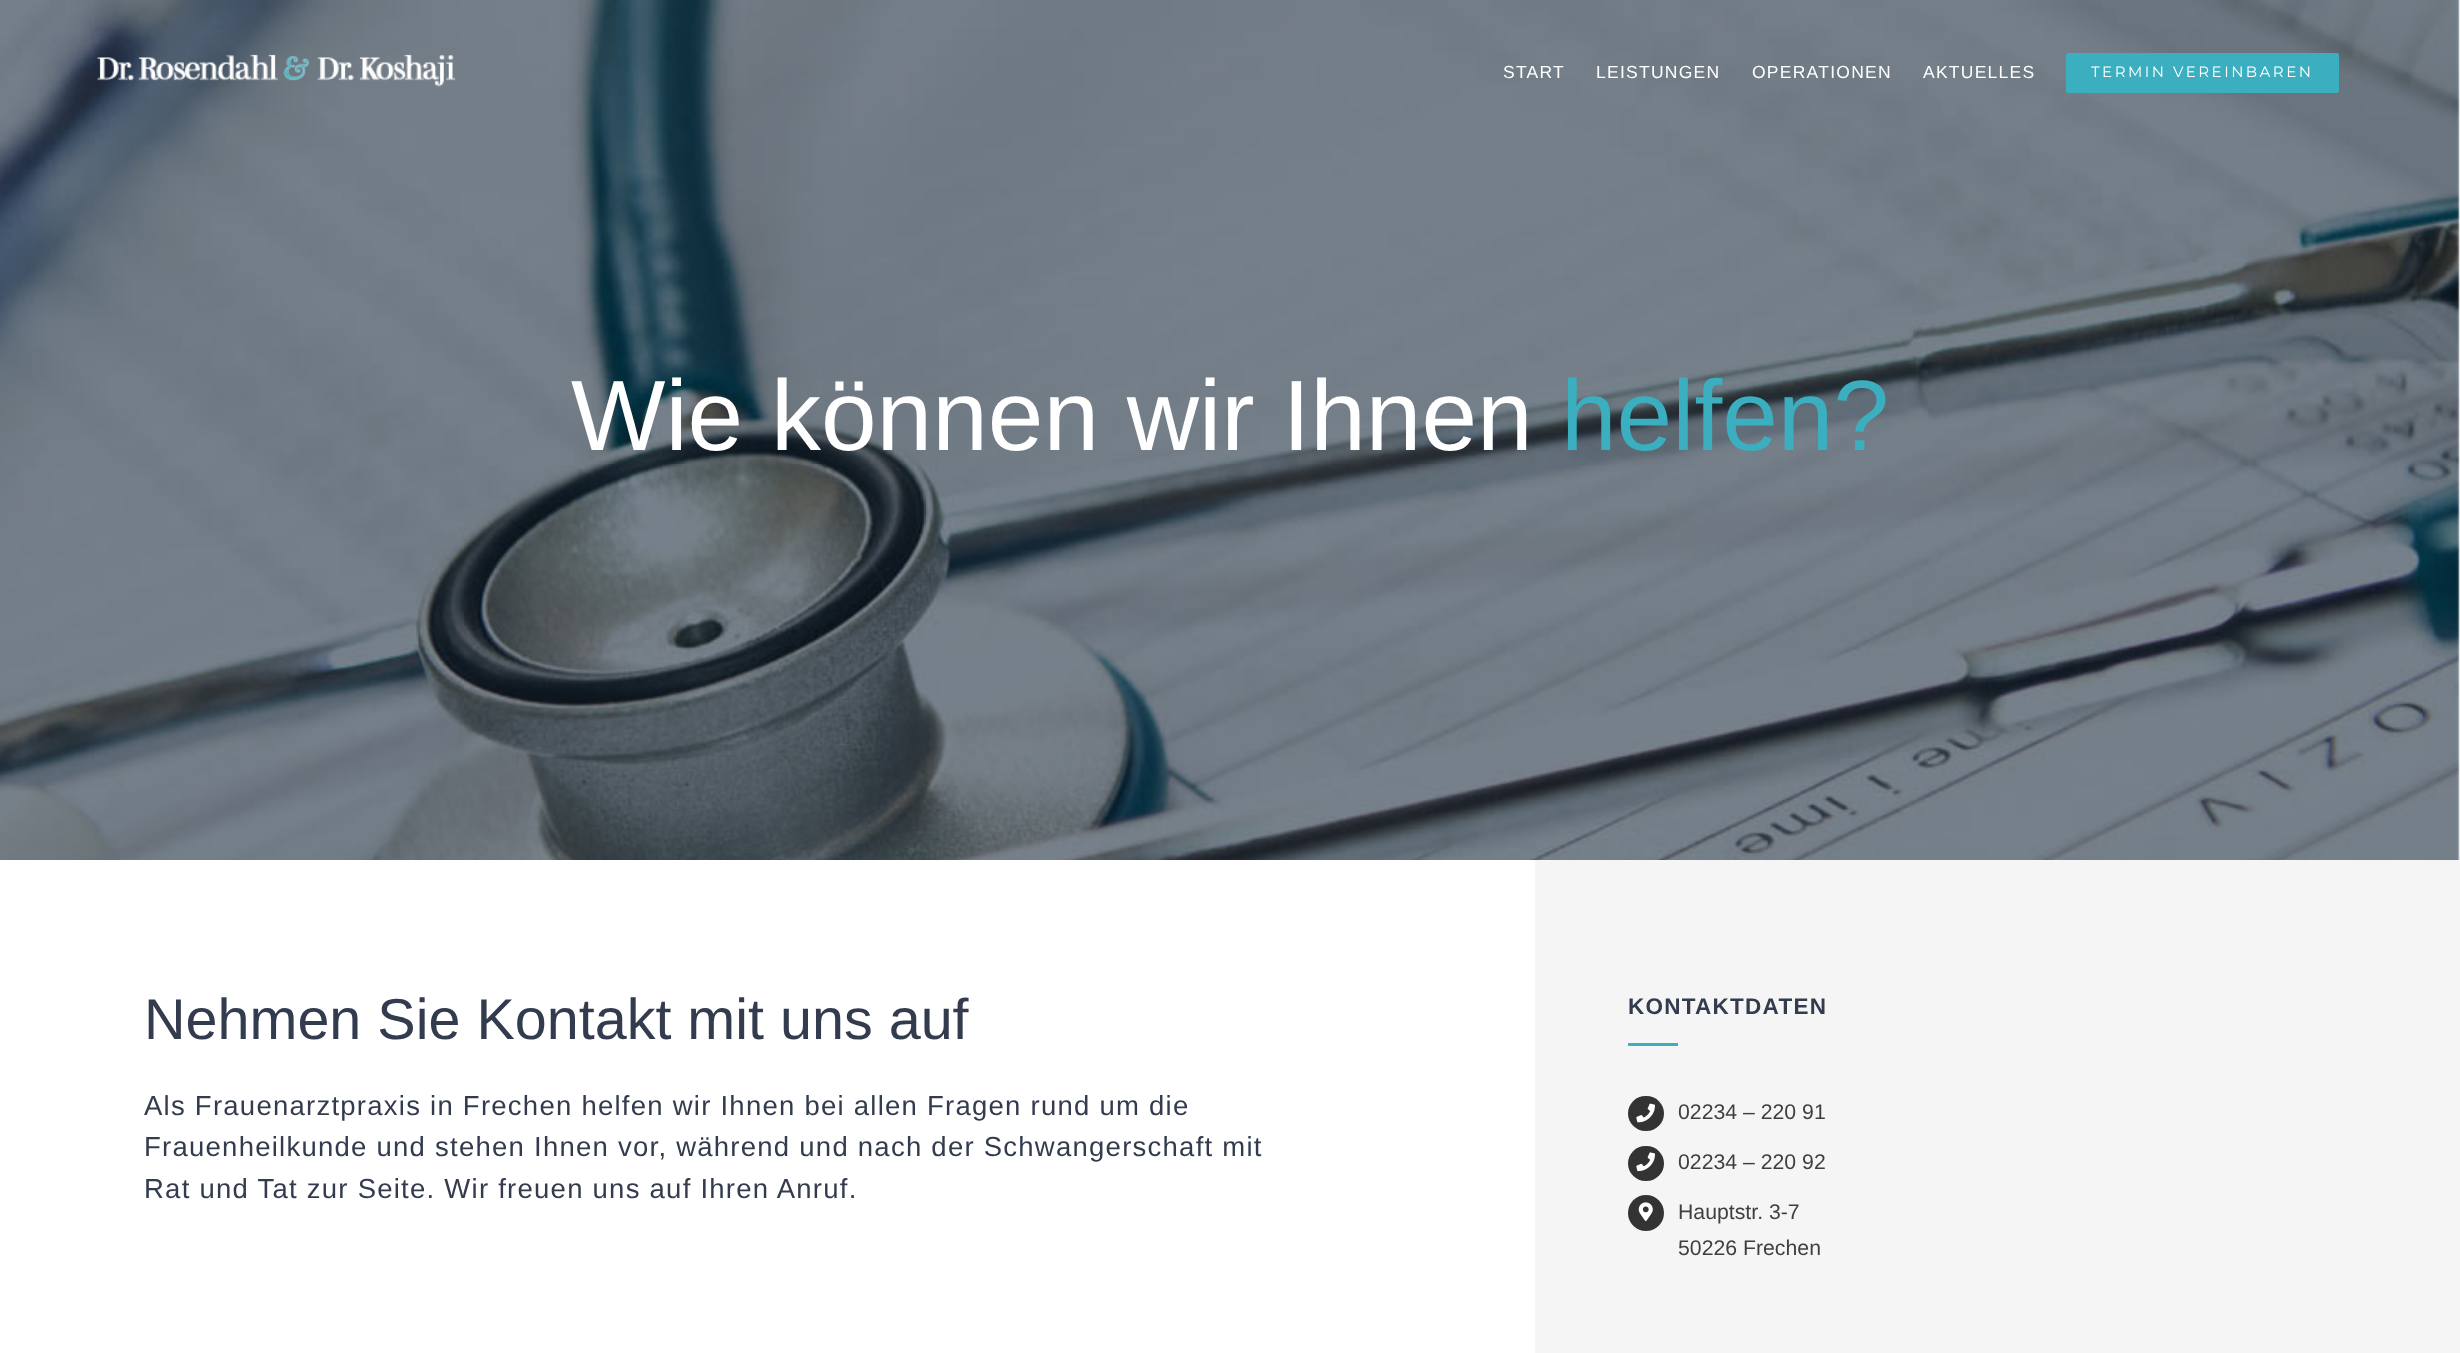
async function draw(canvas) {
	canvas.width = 2460;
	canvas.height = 1353;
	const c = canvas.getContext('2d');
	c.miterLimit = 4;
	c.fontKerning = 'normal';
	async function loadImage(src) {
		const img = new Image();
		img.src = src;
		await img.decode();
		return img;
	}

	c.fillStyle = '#fff';
	c.fillRect(0, 0, 2460, 1353);
	c.drawImage(await loadImage('img2.png'), 0, 0, 2460, 860);
	c.drawImage(await loadImage('img1.png'), 97, 54, 359, 33);
	c.letterSpacing = '1.25px';
	c.font = '17.5px Liberation Sans';
	for (const [text, x, y] of [
		['START', 1503, 78],
		['LEISTUNGEN', 1596, 78],
		['OPERATIONEN', 1752, 78],
		['AKTUELLES', 1923, 78],
	]) {
		c.fillText(text, x, y);
	}
	c.fillStyle = '#3bafbf';
	c.beginPath();
	c.roundRect(2066, 53, 273, 40, 2.5);
	c.fill();
	c.letterSpacing = '2.5px';
	c.font = '15px Montserrat';
	c.fillStyle = '#fff';
	c.fillText('TERMIN VEREINBAREN', 2091, 77);
	c.letterSpacing = '0px';
	c.font = '100px Liberation Sans';
	c.fillText('Wie können wir Ihnen', 571, 450);
	c.fillStyle = '#3bafbf';
	c.fillText('helfen?', 1561, 450);
	c.font = '57.5px Liberation Sans';
	c.fillStyle = '#333c4e';
	c.fillText('Nehmen Sie Kontakt mit uns auf', 144, 1039);
	c.letterSpacing = '1.25px';
	c.font = '27.5px Liberation Sans';
	for (const [text, x, y] of [
		['Als Frauenarztpraxis in Frechen helfen wir Ihnen bei allen Fragen rund um die', 144, 1115],
		['Frauenheilkunde und stehen Ihnen vor, während und nach der Schwangerschaft mit', 144, 1156],
		['Rat und Tat zur Seite. Wir freuen uns auf Ihren Anruf.', 144, 1198],
	]) {
		c.fillText(text, x, y);
	}
	c.fillStyle = '#f5f5f5';
	c.fillRect(1535, 860, 925, 493);
	c.font = 'bold 22.5px Liberation Sans';
	c.fillStyle = '#333c4e';
	c.fillText('KONTAKTDATEN', 1628, 1014);
	c.fillStyle = '#3bafbf';
	c.fillRect(1628, 1043, 50, 3);
	c.fillStyle = '#333';
	c.beginPath();
	c.roundRect(1628, 1096, 36, 35, 17.5);
	c.fill();
	c.drawImage(await loadImage('img3.png'), 1636, 1103, 19, 20);
	c.letterSpacing = '0px';
	c.font = '21.25px Liberation Sans';
	c.fillStyle = '#3f3f3f';
	c.fillText('02234 – 220 91', 1678, 1119);
	c.fillStyle = '#333';
	c.beginPath();
	c.roundRect(1628, 1146, 36, 35, 17.5);
	c.fill();
	c.drawImage(await loadImage('img4.png'), 1636, 1152, 19, 20);
	c.fillStyle = '#3f3f3f';
	c.fillText('02234 – 220 92', 1678, 1169);
	c.fillStyle = '#333';
	c.beginPath();
	c.arc(1646, 1213, 18, 0, 2 * Math.PI);
	c.fill();
	c.drawImage(await loadImage('img5.png'), 1638, 1202, 15, 20);
	c.fillStyle = '#3f3f3f';
	c.fillText('Hauptstr. 3-7', 1678, 1219);
	c.fillText('50226 Frechen', 1678, 1255);
}

draw(document.querySelector('canvas'));
